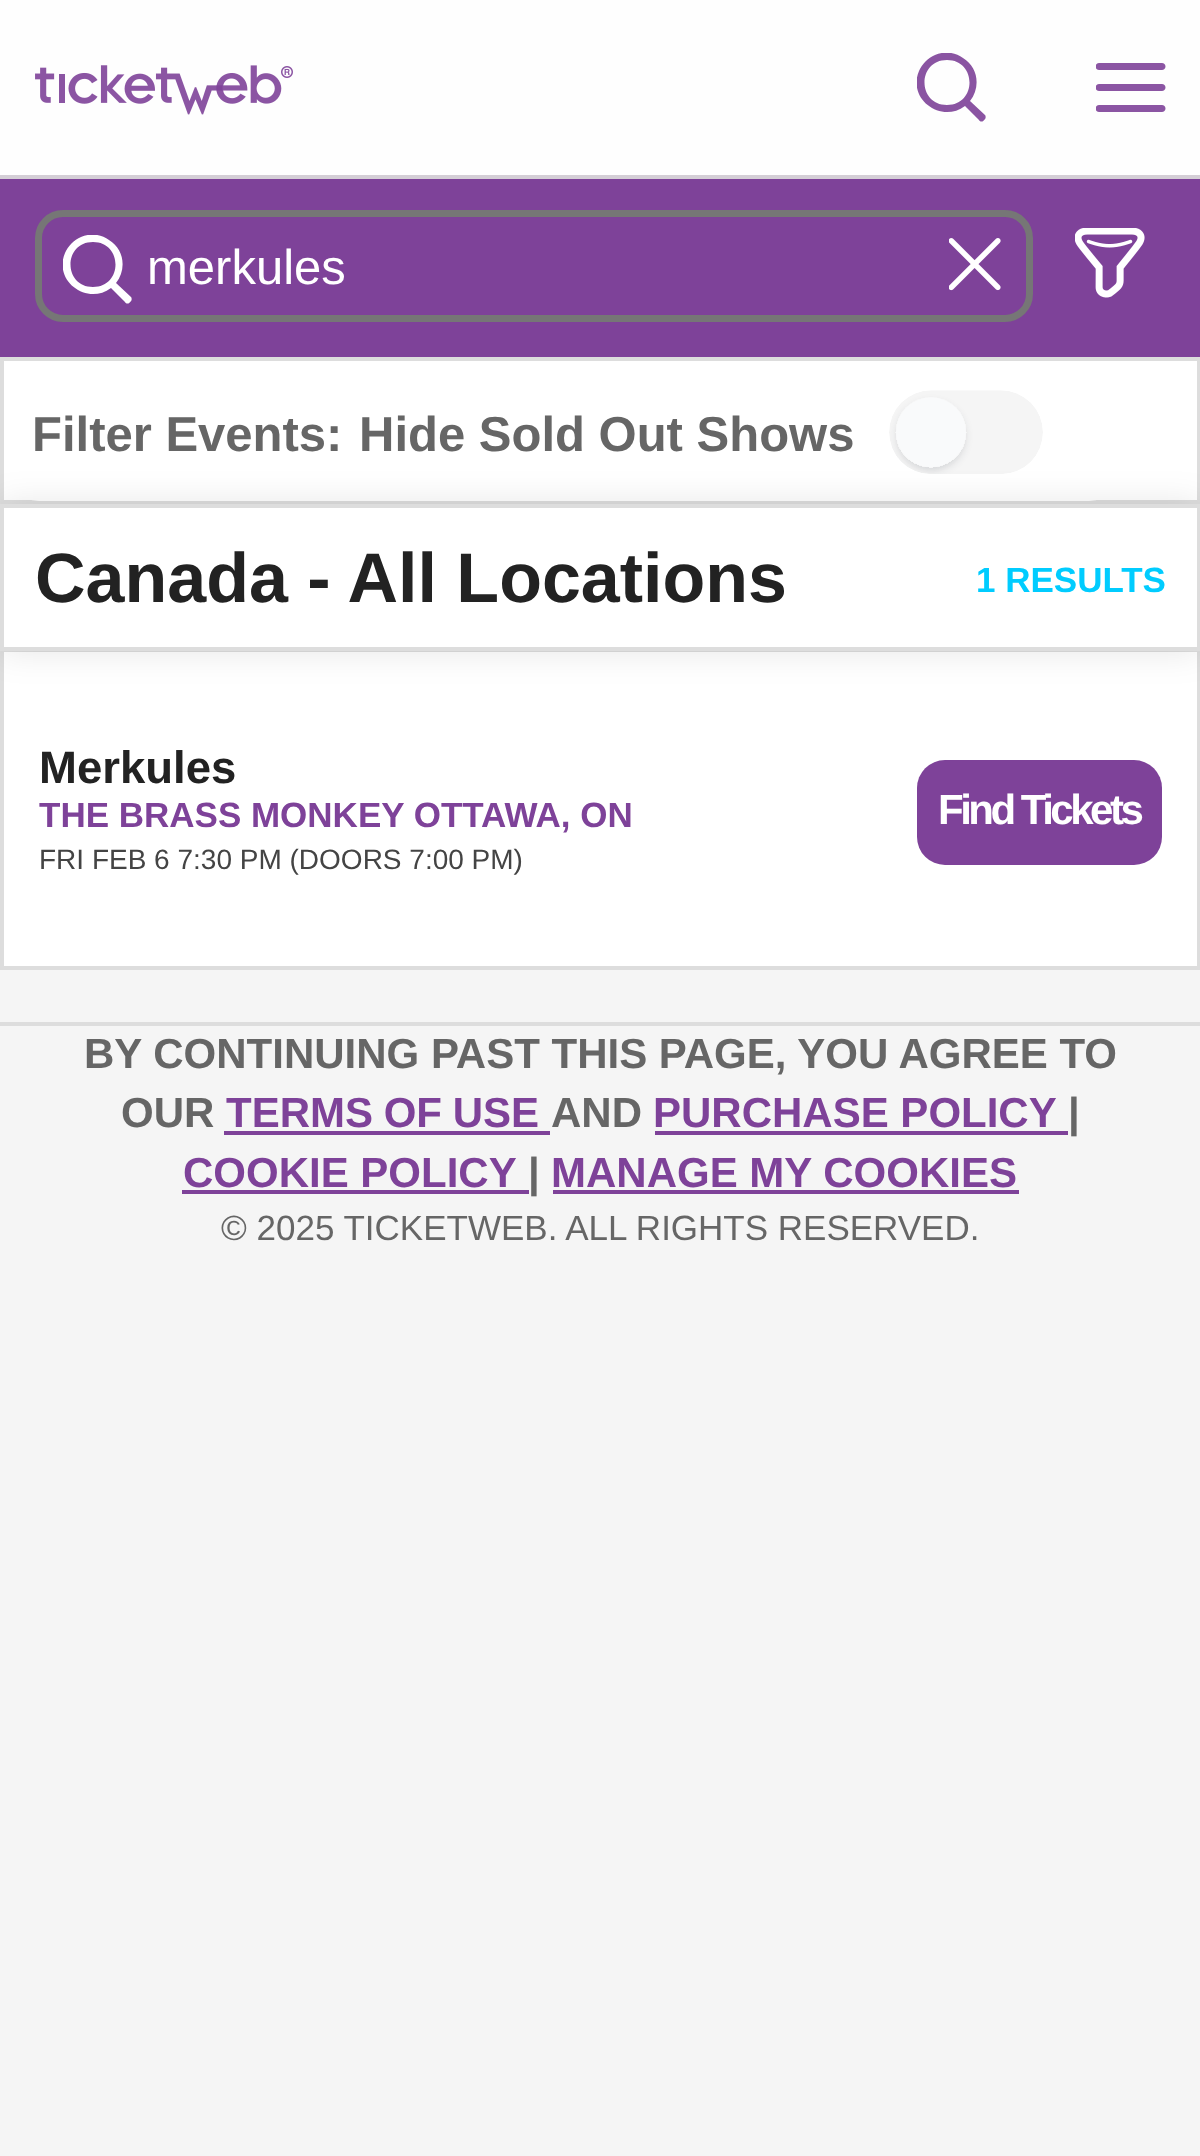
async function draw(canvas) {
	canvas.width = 1200;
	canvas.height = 2156;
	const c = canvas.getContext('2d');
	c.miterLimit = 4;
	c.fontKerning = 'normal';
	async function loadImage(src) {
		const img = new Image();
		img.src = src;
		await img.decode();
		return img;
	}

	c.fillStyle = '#f5f5f5';
	c.fillRect(0, 0, 1200, 2156);
	c.fillStyle = '#ffffffe6';
	c.fillRect(0, 0, 1200, 175);
	c.fillStyle = '#d4ced6';
	c.fillRect(0, 175, 1200, 4);
	c.drawImage(await loadImage('img1.png'), 35, 65, 258, 50);
	c.save();
	c.beginPath();
	c.rect(917, 53, 70, 70);
	c.clip();
	c.fillStyle = '#8a54a2';
	c.beginPath();
	c.moveTo(965, 106);
	c.bezierCurveTo(941, 124, 907, 99, 919, 71);
	c.bezierCurveTo(922, 64, 928, 58, 935, 55);
	c.bezierCurveTo(944, 51, 955, 52, 963, 58);
	c.bezierCurveTo(978, 67, 981, 87, 970, 101);
	c.lineTo(985, 115);
	c.bezierCurveTo(986, 116, 986, 119, 984, 120);
	c.bezierCurveTo(983, 122, 980, 122, 979, 120);
	c.closePath();
	c.moveTo(947, 105);
	c.bezierCurveTo(977, 105, 977, 60, 947, 60);
	c.bezierCurveTo(917, 60, 917, 105, 947, 105);
	c.closePath();
	c.fill('evenodd');
	c.restore();
	c.drawImage(await loadImage('img2.png'), 1096, 63, 70, 49);
	c.fillStyle = '#7e4299';
	c.fillRect(0, 179, 1200, 178);
	c.beginPath();
	c.roundRect(38.5, 213.5, 991, 105, 24.5);
	c.strokeStyle = '#767676';
	c.lineWidth = 7;
	c.stroke();
	c.save();
	c.beginPath();
	c.rect(63, 235, 70, 70);
	c.clip();
	c.fillStyle = '#fff';
	c.beginPath();
	c.moveTo(111, 288);
	c.bezierCurveTo(87, 306, 53, 281, 65, 253);
	c.bezierCurveTo(68, 246, 74, 240, 81, 237);
	c.bezierCurveTo(90, 233, 101, 234, 109, 240);
	c.bezierCurveTo(124, 249, 127, 269, 116, 283);
	c.lineTo(131, 297);
	c.bezierCurveTo(132, 298, 132, 301, 130, 302);
	c.bezierCurveTo(129, 304, 126, 304, 125, 302);
	c.closePath();
	c.moveTo(93, 287);
	c.bezierCurveTo(123, 287, 123, 242, 93, 242);
	c.bezierCurveTo(63, 242, 63, 287, 93, 287);
	c.closePath();
	c.fill('evenodd');
	c.restore();
	c.font = '49px Liberation Sans';
	c.fillStyle = '#fff';
	c.fillText('merkules', 147, 284);
	c.drawImage(await loadImage('img3.png'), 949, 238, 52, 53);
	c.drawImage(await loadImage('img4.png'), 1075, 228, 70, 70);
	c.beginPath();
	c.rect(2, 359, 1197, 143);
	c.fill();
	c.strokeStyle = '#ddd';
	c.lineWidth = 4;
	c.stroke();
	c.beginPath();
	c.roundRect(4, 361, 1120, 140, 35);
	c.fill();
	c.font = 'bold 49px Liberation Sans';
	c.fillStyle = '#666';
	c.fillText('Filter Events:', 32, 451);
	c.fillText('Hide Sold Out Shows', 359, 451);
	c.drawImage(await loadImage('img5.png'), 889, 390, 154, 84);
	c.fillStyle = '#fff';
	c.beginPath();
	c.rect(2, 650, 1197, 318);
	c.fill();
	c.stroke();
	c.fillStyle = '#0000001a';
	c.filter = 'blur(17.5px)';
	c.beginPath();
	c.rect(0, 504, 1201, 147);
	c.fill();
	c.filter = 'none';
	c.fillStyle = '#fff';
	c.beginPath();
	c.rect(2, 506, 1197, 143);
	c.fill();
	c.stroke();
	c.font = 'bold 70px Liberation Sans';
	c.fillStyle = '#222';
	c.fillText('Canada - All Locations', 35, 602);
	c.font = 'bold 35px Liberation Sans';
	c.fillStyle = '#0cf';
	c.fillText('1 RESULTS', 976, 592);
	c.font = 'bold 45.5px Liberation Sans';
	c.fillStyle = '#222';
	c.fillText('Merkules', 39, 783);
	c.save();
	c.beginPath();
	c.rect(39, 795, 843, 42);
	c.clip();
	c.font = 'bold 35px Liberation Sans';
	c.fillStyle = '#7e4299';
	c.fillText('THE BRASS MONKEY OTTAWA, ON', 39, 827);
	c.restore();
	c.font = '28px Liberation Sans';
	c.fillStyle = '#444';
	c.fillText('FRI FEB 6 7:30 PM (DOORS 7:00 PM)', 39, 869);
	c.fillStyle = '#7e4299';
	c.beginPath();
	c.roundRect(917, 760, 245, 105, 28);
	c.fill();
	c.letterSpacing = '-3.5px';
	c.font = 'bold 42px Liberation Sans';
	c.fillStyle = '#fff';
	c.fillText('Find Tickets', 938, 824);
	c.fillStyle = '#ddd';
	c.fillRect(0, 1022, 1200, 4);
	c.letterSpacing = '0px';
	c.fillStyle = '#666';
	c.fillText('BY CONTINUING PAST THIS PAGE, YOU AGREE TO', 84, 1068);
	c.fillText('OUR', 121, 1127);
	c.wordSpacing = '-1px';
	c.fillStyle = '#7e4299';
	c.fillText('TERMS OF USE', 226, 1127);
	c.fillRect(224, 1131, 326, 4);
	c.wordSpacing = '0px';
	c.fillStyle = '#666';
	c.fillText('AND', 551, 1127);
	c.fillStyle = '#7e4299';
	c.fillText('PURCHASE POLICY', 653, 1127);
	c.fillRect(655, 1131, 413, 4);
	c.fillStyle = '#666';
	c.fillText('|', 1068, 1127);
	c.fillStyle = '#7e4299';
	c.fillText('COOKIE POLICY', 183, 1187);
	c.fillRect(182, 1190, 347, 4);
	c.fillStyle = '#666';
	c.fillText('|', 528, 1187);
	c.fillStyle = '#7e4299';
	c.fillText('MANAGE MY COOKIES', 551, 1187);
	c.fillRect(553, 1190, 466, 4);
	c.font = '35px Liberation Sans';
	c.fillStyle = '#666';
	c.fillText('© 2025 TICKETWEB. ALL RIGHTS RESERVED.', 221, 1240);
}

draw(document.querySelector('canvas'));
